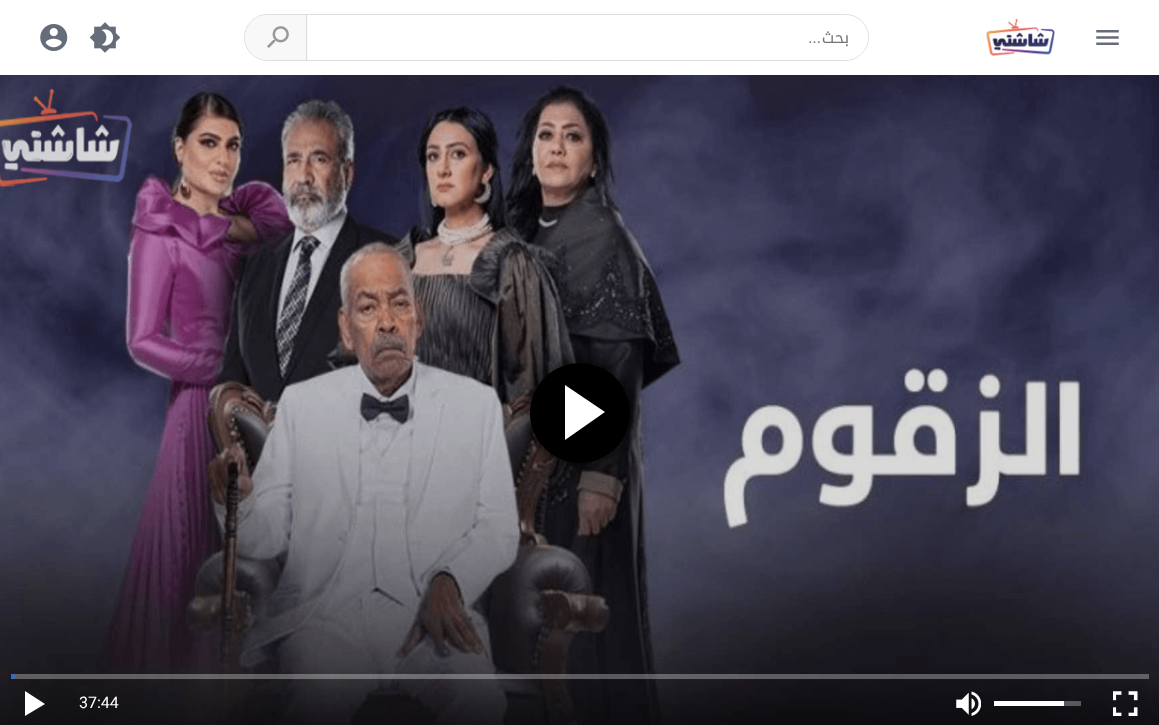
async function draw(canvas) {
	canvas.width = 1159;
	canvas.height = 725;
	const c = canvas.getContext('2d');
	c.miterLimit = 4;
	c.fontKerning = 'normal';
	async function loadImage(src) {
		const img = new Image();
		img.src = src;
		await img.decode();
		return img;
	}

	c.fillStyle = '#fff';
	c.fillRect(0, 0, 1159, 725);
	c.drawImage(await loadImage('img1.png'), 1096, 30, 23, 15);
	c.drawImage(await loadImage('img2.png'), 986, 18, 69, 38);
	c.beginPath();
	c.roundRect(244.5, 14.5, 624, 46, 23);
	c.strokeStyle = '#ddd';
	c.stroke();
	c.beginPath();
	c.roundRect(308, 15, 560, 45, 22.5);
	c.fill();
	c.direction = 'rtl';
	c.font = '16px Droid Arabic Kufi';
	c.fillStyle = '#757575';
	c.fillText('بحث', 849, 43);
	c.font = '16px Roboto';
	c.fillText('...', 821, 43);
	c.fillStyle = '#f8f8f8';
	c.beginPath();
	c.roundRect(245, 15, 63, 45, [22.5, 0, 0, 22.5]);
	c.fill();
	c.fillStyle = '#ddd';
	c.fillRect(306, 15, 1, 45);
	c.drawImage(await loadImage('img3.png'), 267, 26, 22, 22);
	c.drawImage(await loadImage('img4.png'), 89, 22, 32, 31);
	c.drawImage(await loadImage('img5.png'), 40, 24, 28, 27);
	c.drawImage(await loadImage('img6.png'), 0, 75, 1159, 650);
	c.fillStyle = '#000';
	c.filter = 'blur(12.5px)';
	c.beginPath();
	c.roundRect(530, 363, 100, 100, 50);
	c.fill();
	c.filter = 'none';
	c.beginPath();
	c.arc(580, 413, 50, 0, 2 * Math.PI);
	c.fill();
	c.fillStyle = '#fff';
	c.beginPath();
	c.moveTo(565, 440);
	c.lineTo(565, 385);
	c.lineTo(605, 412);
	c.closePath();
	c.fill();
	c.fillStyle = '#ffffff4d';
	c.fillRect(11, 674, 1138, 5);
	c.fillStyle = '#4267b2';
	c.fillRect(11, 674, 4, 5);
	c.drawImage(await loadImage('img7.png'), 1113, 691, 25, 25);
	c.fillStyle = '#ffffff4d';
	c.fillRect(1064, 701, 17, 5);
	c.fillStyle = '#fff';
	c.fillRect(994, 701, 70, 5);
	c.drawImage(await loadImage('img8.png'), 956, 691, 25, 25);
	c.direction = 'ltr';
	c.fillText('37:44', 79, 708);
	c.beginPath();
	c.moveTo(25, 691);
	c.lineTo(25, 716);
	c.lineTo(45, 704);
	c.closePath();
	c.fill();
}

draw(document.querySelector('canvas'));
